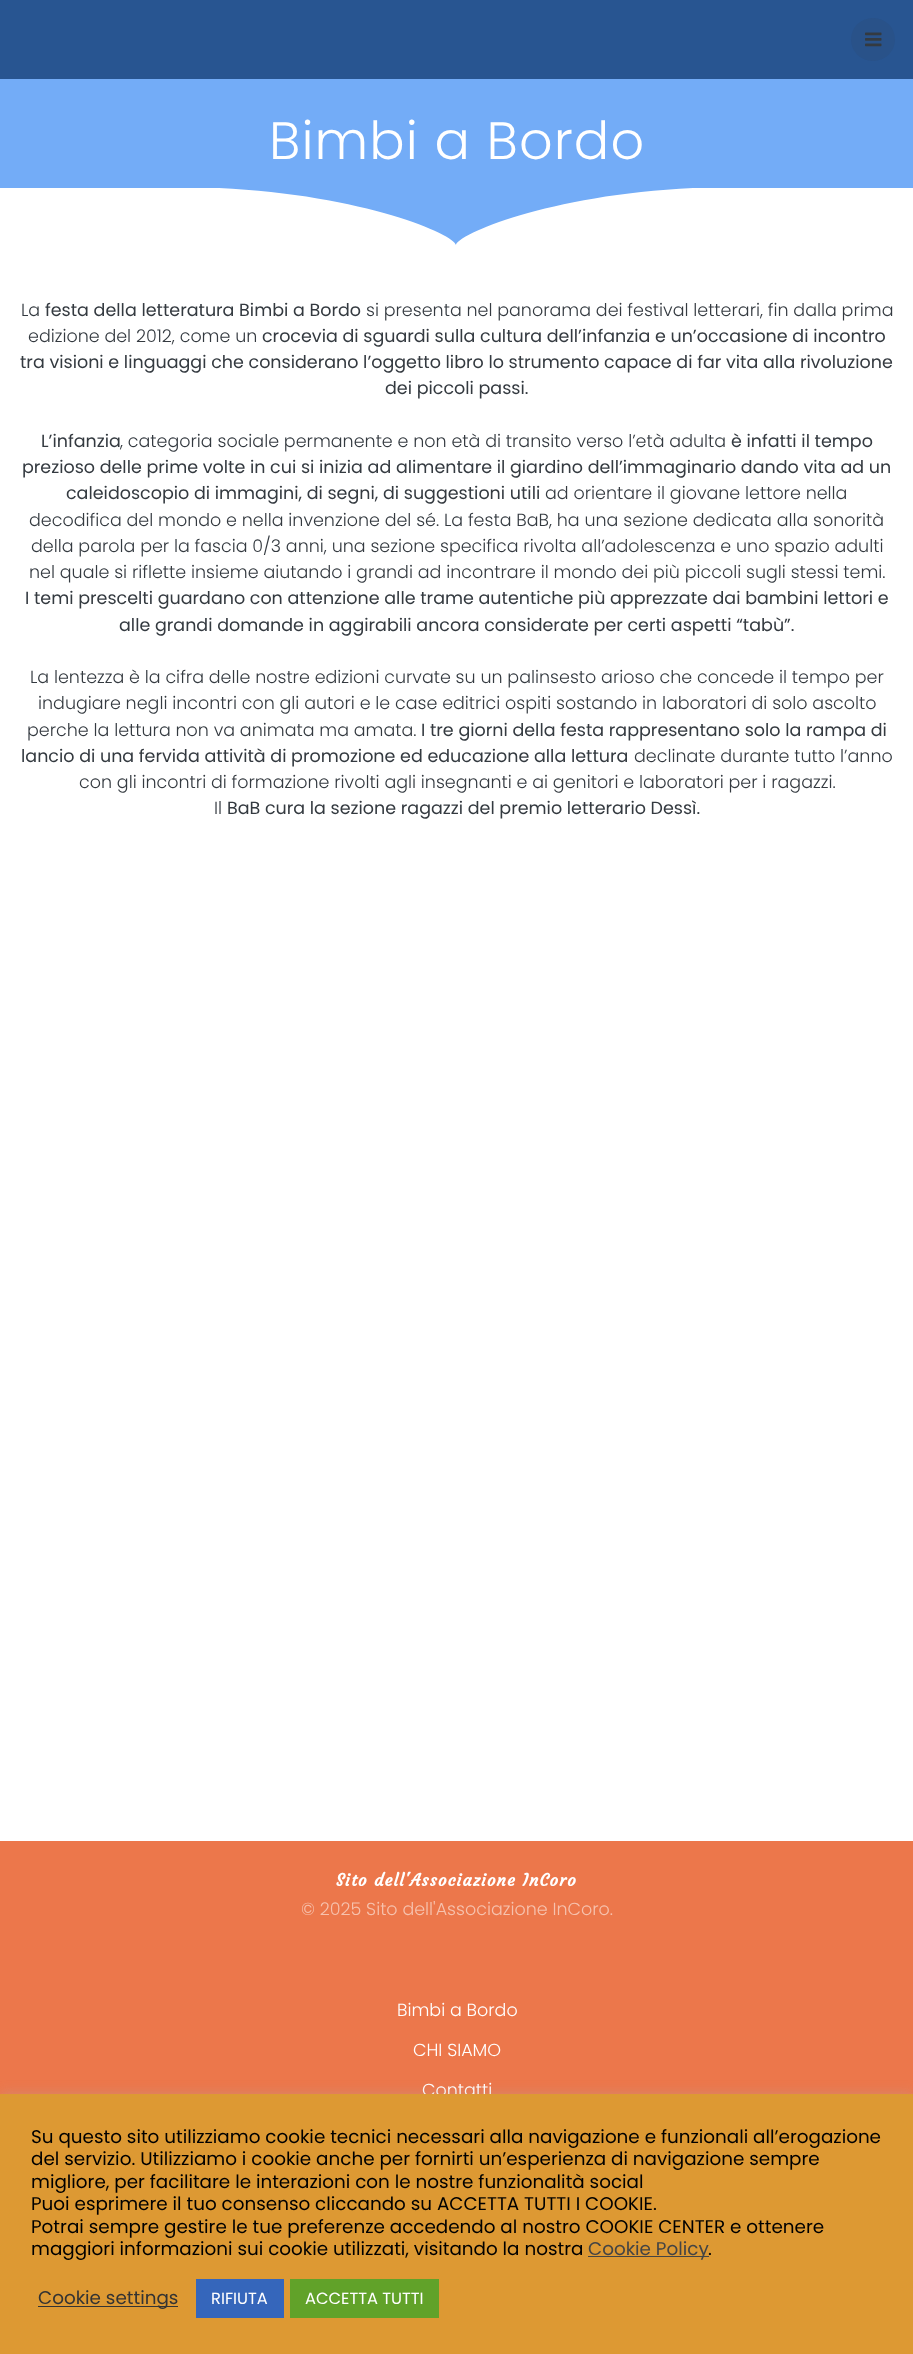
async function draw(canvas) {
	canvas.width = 913;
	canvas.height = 2354;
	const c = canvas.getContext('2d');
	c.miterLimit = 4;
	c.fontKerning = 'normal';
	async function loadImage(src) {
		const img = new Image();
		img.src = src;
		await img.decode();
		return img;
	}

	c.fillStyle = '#fff';
	c.fillRect(0, 0, 913, 2354);
	c.fillStyle = '#285591';
	c.fillRect(0, 0, 913, 79);
	c.fillStyle = '#295289';
	c.beginPath();
	c.roundRect(851, 18, 44, 43, 21.5);
	c.fill();
	c.drawImage(await loadImage('img1.png'), 865, 32, 17, 15);
	c.fillStyle = '#73acf7';
	c.fillRect(0, 79, 913, 166);
	c.letterSpacing = '1.1px';
	c.font = '300 52.5px Poppins';
	c.fillStyle = '#fff';
	c.fillText('Bimbi a Bordo', 269, 159);
	c.save();
	c.beginPath();
	c.rect(0, 188, 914, 60);
	c.clip();
	c.beginPath();
	c.moveTo(736, 187);
	c.bezierCurveTo(565, 187, 457, 234, 456, 245);
	c.bezierCurveTo(455, 234, 347, 187, 176, 187);
	c.lineTo(-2, 187);
	c.lineTo(-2, 247);
	c.lineTo(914, 246);
	c.lineTo(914, 187);
	c.closePath();
	c.fill();
	c.restore();
	c.letterSpacing = '0px';
	c.font = '300 17.5px Poppins';
	c.fillStyle = '#343a40';
	c.fillText('La', 21, 316);
	c.font = '17.5px Poppins';
	c.fillText('festa della letteratura Bimbi a Bordo', 45, 316);
	c.font = '300 17.5px Poppins';
	c.fillText('si presenta nel panorama dei festival letterari, fin dalla prima', 366, 316);
	c.fillText('edizione del 2012, come un', 28, 342);
	c.font = '17.5px Poppins';
	for (const [text, x, y] of [
		['crocevia di sguardi sulla cultura dell’infanzia e un’occasione di incontro', 262, 342],
		['tra visioni e linguaggi che considerano l’oggetto libro lo strumento capace di far vita alla rivoluzione', 20, 368],
		['dei piccoli passi.', 385, 394],
		['L’infanzia', 41, 447],
	]) {
		c.fillText(text, x, y);
	}
	c.font = '300 17.5px Poppins';
	c.fillText(', categoria sociale permanente e non età di transito verso l’età adulta', 120, 447);
	c.font = '17.5px Poppins';
	for (const [text, x, y] of [
		['è infatti il tempo', 731, 447],
		['prezioso delle prime volte in cui si inizia ad alimentare il giardino dell’immaginario dando vita ad un', 22, 473],
		['caleidoscopio di immagini, di segni, di suggestioni utili', 66, 499],
	]) {
		c.fillText(text, x, y);
	}
	c.font = '300 17.5px Poppins';
	for (const [text, x, y] of [
		['ad orientare il giovane lettore nella', 545, 499],
		['decodifica del mondo e nella invenzione del sé. La festa BaB, ha una sezione dedicata alla sonorità', 29, 526],
		['della parola per la fascia 0/3 anni, una sezione specifica rivolta all’adolescenza e uno spazio adulti', 31, 552],
		['nel quale si riflette insieme aiutando i grandi ad incontrare il mondo dei più piccoli sugli stessi temi.', 29, 578],
	]) {
		c.fillText(text, x, y);
	}
	c.font = '17.5px Poppins';
	c.fillText('I temi prescelti guardano con attenzione alle trame autentiche più apprezzate dai bambini lettori e', 25, 604);
	c.fillText('alle grandi domande in aggirabili ancora considerate per certi aspetti “tabù”.', 119, 631);
	c.font = '300 17.5px Poppins';
	for (const [text, x, y] of [
		['La lentezza è la cifra delle nostre edizioni curvate su un palinsesto arioso che concede il tempo per', 30, 683],
		['indugiare negli incontri con gli autori e le case editrici ospiti sostando in laboratori di solo ascolto', 38, 709],
		['perche la lettura non va animata ma amata.', 27, 736],
	]) {
		c.fillText(text, x, y);
	}
	c.font = '17.5px Poppins';
	c.fillText('I tre giorni della festa rappresentano solo la rampa di', 421, 736);
	c.fillText('lancio di una fervida attività di promozione ed educazione alla lettura', 21, 762);
	c.font = '300 17.5px Poppins';
	for (const [text, x, y] of [
		['declinate durante tutto l’anno', 634, 762],
		['con gli incontri di formazione rivolti agli insegnanti e ai genitori e laboratori per i ragazzi.', 79, 788],
		['Il', 214, 814],
	]) {
		c.fillText(text, x, y);
	}
	c.font = '17.5px Poppins';
	c.fillText('BaB cura la sezione ragazzi del premio letterario Dessì.', 227, 814);
	c.fillStyle = '#ec774b';
	c.fillRect(0, 1841, 913, 253);
	c.letterSpacing = '1.1px';
	c.font = 'bold 16.8px Courgette';
	c.fillStyle = '#fff';
	c.fillText('Sito dell\'Associazione InCoro', 336, 1886);
	c.letterSpacing = '0px';
	c.font = '300 17.5px Poppins';
	c.fillStyle = '#f6c2ae';
	c.fillText('© 2025 Sito dell\'Associazione InCoro.', 301, 1915);
	c.fillStyle = '#fff';
	for (const [text, x, y] of [
		['Bimbi a Bordo', 397, 2016],
		['CHI SIAMO', 413, 2056],
		['Contatti', 422, 2096],
	]) {
		c.fillText(text, x, y);
	}
	c.fillStyle = '#acabab4d';
	c.filter = 'blur(6px)';
	c.beginPath();
	c.rect(0, 2093, 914, 261);
	c.fill();
	c.filter = 'none';
	c.fillStyle = '#d93';
	c.fillRect(0, 2094, 913, 260);
	c.font = '18.35px Poppins';
	c.fillStyle = '#000';
	for (const [text, x, y] of [
		['Su questo sito utilizziamo cookie tecnici necessari alla navigazione e funzionali all’erogazione', 31, 2143],
		['del servizio. Utilizziamo i cookie anche per fornirti un’esperienza di navigazione sempre', 31, 2165],
		['migliore, per facilitare le interazioni con le nostre funzionalità social', 31, 2188],
		['Puoi esprimere il tuo consenso cliccando su ACCETTA TUTTI I COOKIE.', 31, 2210],
		['Potrai sempre gestire le tue preferenze accedendo al nostro COOKIE CENTER e ottenere', 31, 2233],
		['maggiori informazioni sui cookie utilizzati, visitando la nostra', 31, 2255],
	]) {
		c.fillText(text, x, y);
	}
	c.fillStyle = '#444';
	c.fillRect(588, 2256, 121, 1);
	c.fillText('Cookie Policy', 588, 2255);
	c.fillStyle = '#000';
	c.fillText('.', 708, 2255);
	c.fillStyle = '#333';
	c.fillRect(38, 2306, 140, 1);
	c.fillText('Cookie settings', 38, 2304);
	c.fillStyle = '#3566bb';
	c.fillRect(196, 2279, 88, 39);
	c.font = '16.25px Poppins';
	c.fillStyle = '#fff';
	c.fillText('RIFIUTA', 211, 2304);
	c.fillStyle = '#61a229';
	c.fillRect(290, 2279, 149, 39);
	c.fillStyle = '#fff';
	c.fillText('ACCETTA TUTTI', 305, 2304);
}

draw(document.querySelector('canvas'));
